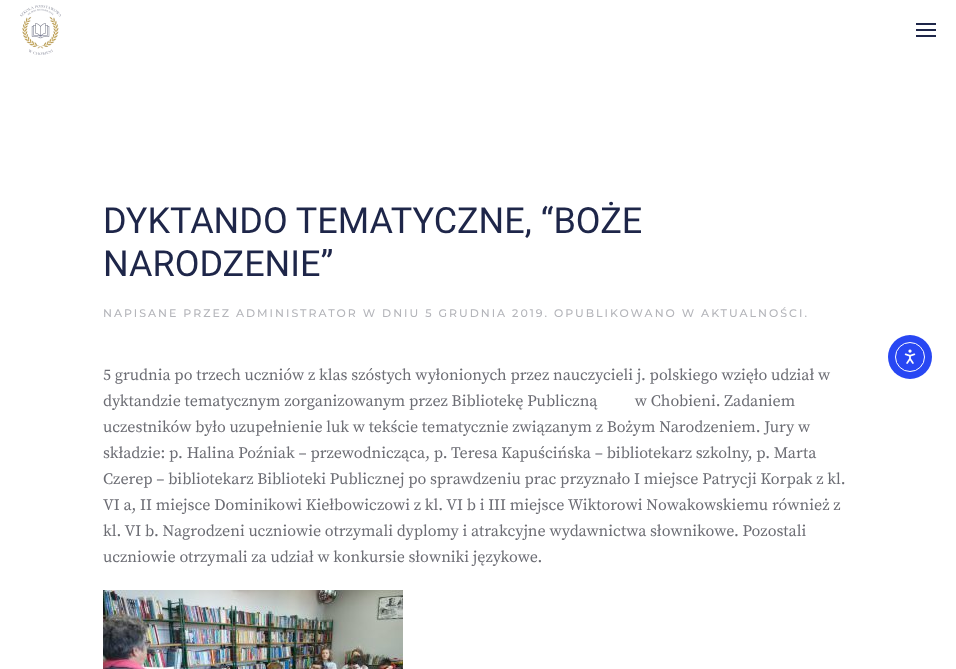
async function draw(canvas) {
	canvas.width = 956;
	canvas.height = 669;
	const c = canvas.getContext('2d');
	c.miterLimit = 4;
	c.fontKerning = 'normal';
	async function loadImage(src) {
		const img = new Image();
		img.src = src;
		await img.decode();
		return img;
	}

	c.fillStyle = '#fff';
	c.fillRect(0, 0, 956, 669);
	c.drawImage(await loadImage('img1.png'), 20, 5, 41, 50);
	for (const [x, y, w, h, color] of [
		[916, 23, 20, 2, '#1e2649'],
		[916, 29, 20, 2, '#1e2649'],
		[916, 35, 20, 2, '#1e2649'],
	]) {
		c.fillStyle = color;
		c.fillRect(x, y, w, h);
	}
	c.font = '36px Roboto';
	c.fillText('DYKTANDO TEMATYCZNE, “BOŻE', 103, 233);
	c.fillText('NARODZENIE”', 103, 276);
	c.letterSpacing = '2px';
	c.font = '100 11px Montserrat';
	c.fillStyle = '#b4b5ba';
	c.fillText('NAPISANE PRZEZ ADMINISTRATOR W DNIU 5 GRUDNIA 2019. OPUBLIKOWANO W AKTUALNOŚCI.', 103, 317);
	c.letterSpacing = '0px';
	c.font = '16px Source Serif Pro';
	c.fillStyle = '#6c6d74';
	for (const [text, x, y] of [
		['5 grudnia po trzech uczniów z klas szóstych wyłonionych przez nauczycieli j. polskiego wzięło udział w', 103, 380],
		['dyktandzie tematycznym zorganizowanym przez Bibliotekę Publiczną          w Chobieni. Zadaniem', 103, 406],
		['uczestników było uzupełnienie luk w tekście tematycznie związanym z Bożym Narodzeniem. Jury w', 103, 432],
		['składzie: p. Halina Poźniak – przewodnicząca, p. Teresa Kapuścińska – bibliotekarz szkolny, p. Marta', 103, 458],
		['Czerep – bibliotekarz Biblioteki Publicznej po sprawdzeniu prac przyznało I miejsce Patrycji Korpak z kl.', 103, 484],
		['VI a, II miejsce Dominikowi Kiełbowiczowi z kl. VI b i III miejsce Wiktorowi Nowakowskiemu również z', 103, 510],
		['kl. VI b. Nagrodzeni uczniowie otrzymali dyplomy i atrakcyjne wydawnictwa słownikowe. Pozostali', 103, 536],
		['uczniowie otrzymali za udział w konkursie słowniki językowe.', 103, 562],
	]) {
		c.fillText(text, x, y);
	}
	c.drawImage(await loadImage('img2.png'), 103, 590, 300, 79);
	c.fillStyle = '#2847f3';
	c.beginPath();
	c.arc(910, 357, 22, 0, 2 * Math.PI);
	c.fill();
	c.beginPath();
	c.arc(910, 357, 14.5, 0, 2 * Math.PI);
	c.strokeStyle = '#fff';
	c.stroke();
	c.drawImage(await loadImage('img3.png'), 904, 349, 12, 15);
}

draw(document.querySelector('canvas'));
